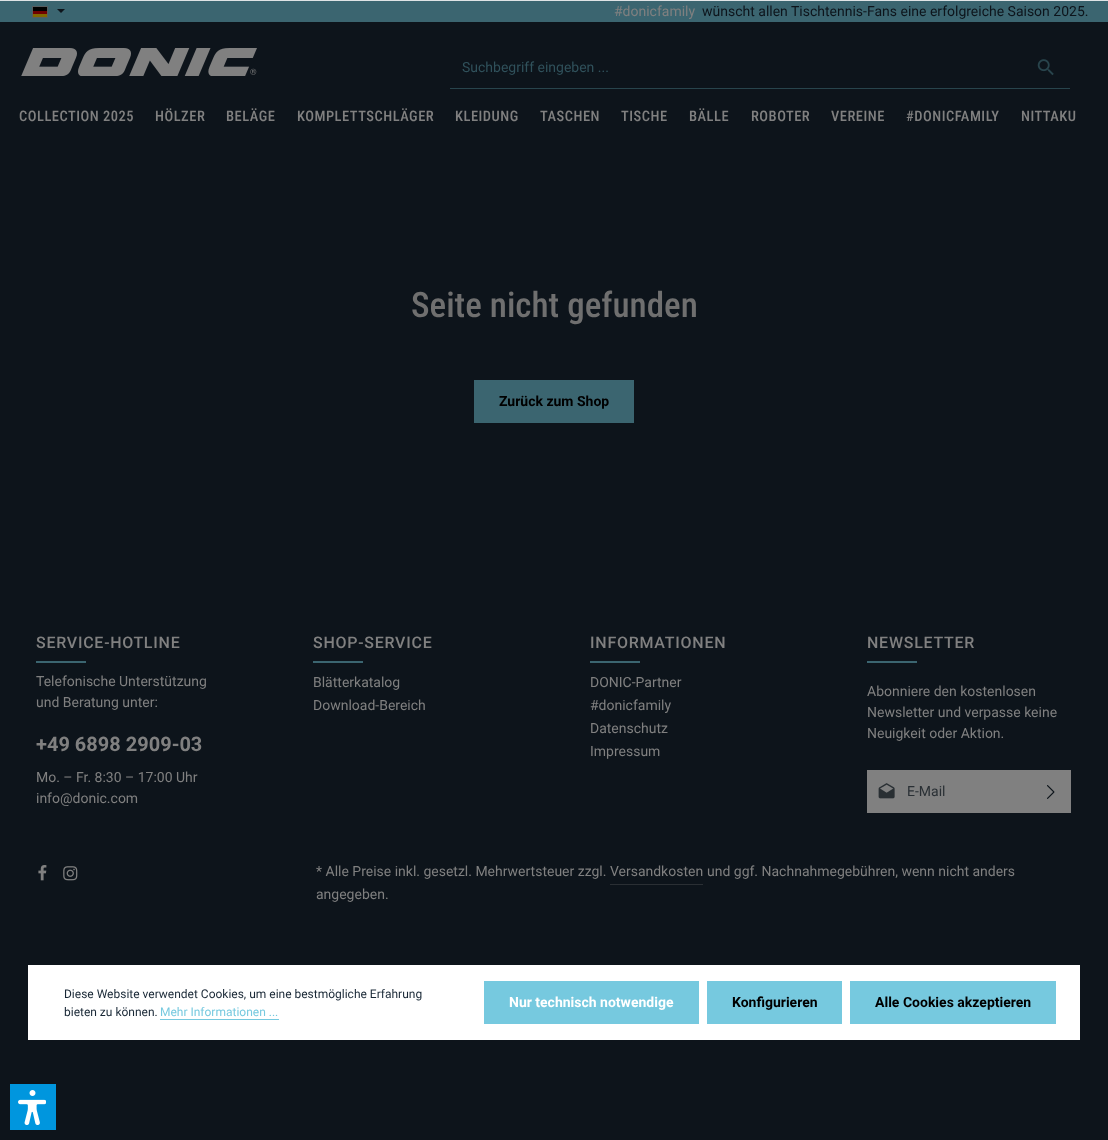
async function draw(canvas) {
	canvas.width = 1108;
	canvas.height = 1140;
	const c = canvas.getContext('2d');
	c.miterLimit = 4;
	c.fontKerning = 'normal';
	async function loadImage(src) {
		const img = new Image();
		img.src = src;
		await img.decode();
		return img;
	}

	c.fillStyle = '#0d141b';
	c.fillRect(0, 0, 1108, 1140);
	for (const [x, y, w, h, color] of [
		[0, 1, 1108, 21, '#3b6570'],
		[33, 14, 14, 3, '#806700'],
		[33, 7, 14, 4, '#000'],
		[33, 11, 14, 3, '#6f0000'],
	]) {
		c.fillStyle = color;
		c.fillRect(x, y, w, h);
	}
	c.strokeStyle = '#575c5f';
	c.strokeRect(32.5, 6.5, 15, 11);
	c.fillStyle = '#0d141b';
	c.beginPath();
	c.moveTo(57, 9);
	c.lineTo(65, 9);
	c.lineTo(61, 13);
	c.closePath();
	c.fill();
	c.font = '14px Roboto';
	c.fillStyle = '#808080';
	c.fillText('#donicfamily', 614, 16);
	c.fillStyle = '#0d141b';
	c.fillText('wünscht allen Tischtennis-Fans eine erfolgreiche Saison 2025.', 702, 16);
	c.drawImage(await loadImage('img1.png'), 21, 48, 236, 28);
	c.fillStyle = '#28444c';
	c.fillRect(449, 88, 621, 1);
	c.fillStyle = '#0d141b';
	c.fillRect(449, 88, 1, 1);
	c.fillStyle = '#30515b';
	c.fillText('Suchbegriff eingeben ...', 462, 72);
	c.drawImage(await loadImage('img2.png'), 1037, 59, 17, 17);
	c.letterSpacing = '0.5px';
	c.font = '500 14.5px Roboto Condensed';
	c.fillStyle = '#808080';
	for (const [text, x, y] of [
		['COLLECTION 2025', 19, 121],
		['HÖLZER', 155, 121],
		['BELÄGE', 226, 121],
		['KOMPLETTSCHLÄGER', 297, 121],
		['KLEIDUNG', 455, 121],
		['TASCHEN', 540, 121],
		['TISCHE', 621, 121],
		['BÄLLE', 689, 121],
		['ROBOTER', 751, 121],
		['VEREINE', 831, 121],
		['#DONICFAMILY', 906, 121],
		['NITTAKU', 1021, 121],
	]) {
		c.fillText(text, x, y);
	}
	c.letterSpacing = '0px';
	c.font = '500 35px Roboto Condensed';
	c.fillStyle = '#6f6f6f';
	c.fillText('Seite nicht gefunden', 411, 317);
	c.fillStyle = '#3b6570';
	c.fillRect(474, 380, 160, 43);
	c.font = 'bold 14px Roboto';
	c.fillStyle = '#000';
	c.fillText('Zurück zum Shop', 499, 406);
	c.letterSpacing = '0.75px';
	c.font = '500 16px Roboto';
	c.fillStyle = '#808080';
	c.fillText('SERVICE-HOTLINE', 36, 648);
	c.fillStyle = '#3b6570';
	c.fillRect(36, 661, 50, 2);
	c.letterSpacing = '0px';
	c.font = '14px Roboto';
	c.fillStyle = '#808080';
	c.fillText('Telefonische Unterstützung', 36, 686);
	c.fillText('und Beratung unter:', 36, 707);
	c.font = 'bold 20px Roboto';
	c.fillText('+49 6898 2909-03', 36, 751);
	c.font = '14px Roboto';
	c.fillText('Mo. – Fr. 8:30 – 17:00 Uhr', 36, 782);
	c.fillText('info@donic.com', 36, 803);
	c.letterSpacing = '0.75px';
	c.font = '500 16px Roboto';
	c.fillText('SHOP-SERVICE', 313, 648);
	c.fillStyle = '#3b6570';
	c.fillRect(313, 661, 50, 2);
	c.letterSpacing = '0px';
	c.font = '14px Roboto';
	c.fillStyle = '#808080';
	c.fillText('Blätterkatalog', 313, 687);
	c.fillText('Download-Bereich', 313, 710);
	c.letterSpacing = '0.75px';
	c.font = '500 16px Roboto';
	c.fillText('INFORMATIONEN', 590, 648);
	c.fillStyle = '#3b6570';
	c.fillRect(590, 661, 50, 2);
	c.letterSpacing = '0px';
	c.font = '14px Roboto';
	c.fillStyle = '#808080';
	for (const [text, x, y] of [
		['DONIC-Partner', 590, 687],
		['#donicfamily', 590, 710],
		['Datenschutz', 590, 733],
		['Impressum', 590, 756],
	]) {
		c.fillText(text, x, y);
	}
	c.letterSpacing = '0.75px';
	c.font = '500 16px Roboto';
	c.fillText('NEWSLETTER', 867, 648);
	c.fillStyle = '#3b6570';
	c.fillRect(867, 661, 50, 2);
	c.letterSpacing = '0px';
	c.font = '14px Roboto';
	c.fillStyle = '#808080';
	for (const [text, x, y] of [
		['Abonniere den kostenlosen', 867, 696],
		['Newsletter und verpasse keine', 867, 717],
		['Neuigkeit oder Aktion.', 867, 738],
	]) {
		c.fillText(text, x, y);
	}
	c.fillRect(867, 771, 165, 41);
	c.drawImage(await loadImage('img3.png'), 878, 783, 17, 16);
	c.fillRect(867, 770, 166, 1);
	c.fillRect(867, 812, 166, 1);
	c.fillStyle = '#292f34';
	c.fillText('E-Mail', 907, 796);
	c.fillStyle = '#808080';
	c.fillRect(1032, 770, 39, 43);
	c.drawImage(await loadImage('img4.png'), 1047, 785, 8, 14);
	c.drawImage(await loadImage('img5.png'), 38, 865, 9, 16);
	c.drawImage(await loadImage('img6.png'), 63, 866, 15, 15);
	c.fillText('* Alle Preise inkl. gesetzl. Mehrwertsteuer zzgl. Versandkosten', 316, 876);
	c.fillText('und ggf. Nachnahmegebühren, wenn nicht anders', 707, 876);
	c.fillStyle = '#2a2f34';
	c.fillRect(610, 884, 93, 1);
	c.fillStyle = '#808080';
	c.fillText('angegeben.', 316, 899);
	c.fillStyle = '#dfe3e5';
	c.fillRect(0, 0, 1108, 1);
	c.fillStyle = '#fff';
	c.fillRect(28, 965, 1052, 75);
	c.font = '12px Roboto';
	c.fillStyle = '#182735';
	c.fillText('Diese Website verwendet Cookies, um eine bestmögliche Erfahrung', 64, 998);
	c.fillText('bieten zu können.', 64, 1016);
	c.fillStyle = '#76c9df';
	c.fillText('Mehr Informationen ...', 160, 1016);
	c.fillRect(160, 1019, 119, 1);
	c.fillRect(484, 981, 215, 43);
	c.font = 'bold 14px Roboto';
	c.fillStyle = '#fff';
	c.fillText('Nur technisch notwendige', 509, 1007);
	c.fillStyle = '#76c9df';
	c.fillRect(707, 981, 135, 43);
	c.fillStyle = '#000';
	c.fillText('Konfigurieren', 732, 1007);
	c.fillStyle = '#76c9df';
	c.fillRect(850, 981, 206, 43);
	c.fillStyle = '#000';
	c.fillText('Alle Cookies akzeptieren', 875, 1007);
	c.fillStyle = '#0096de';
	c.fillRect(10, 1084, 46, 46);
	c.drawImage(await loadImage('img7.png'), 18, 1090, 28, 35);
}

draw(document.querySelector('canvas'));
